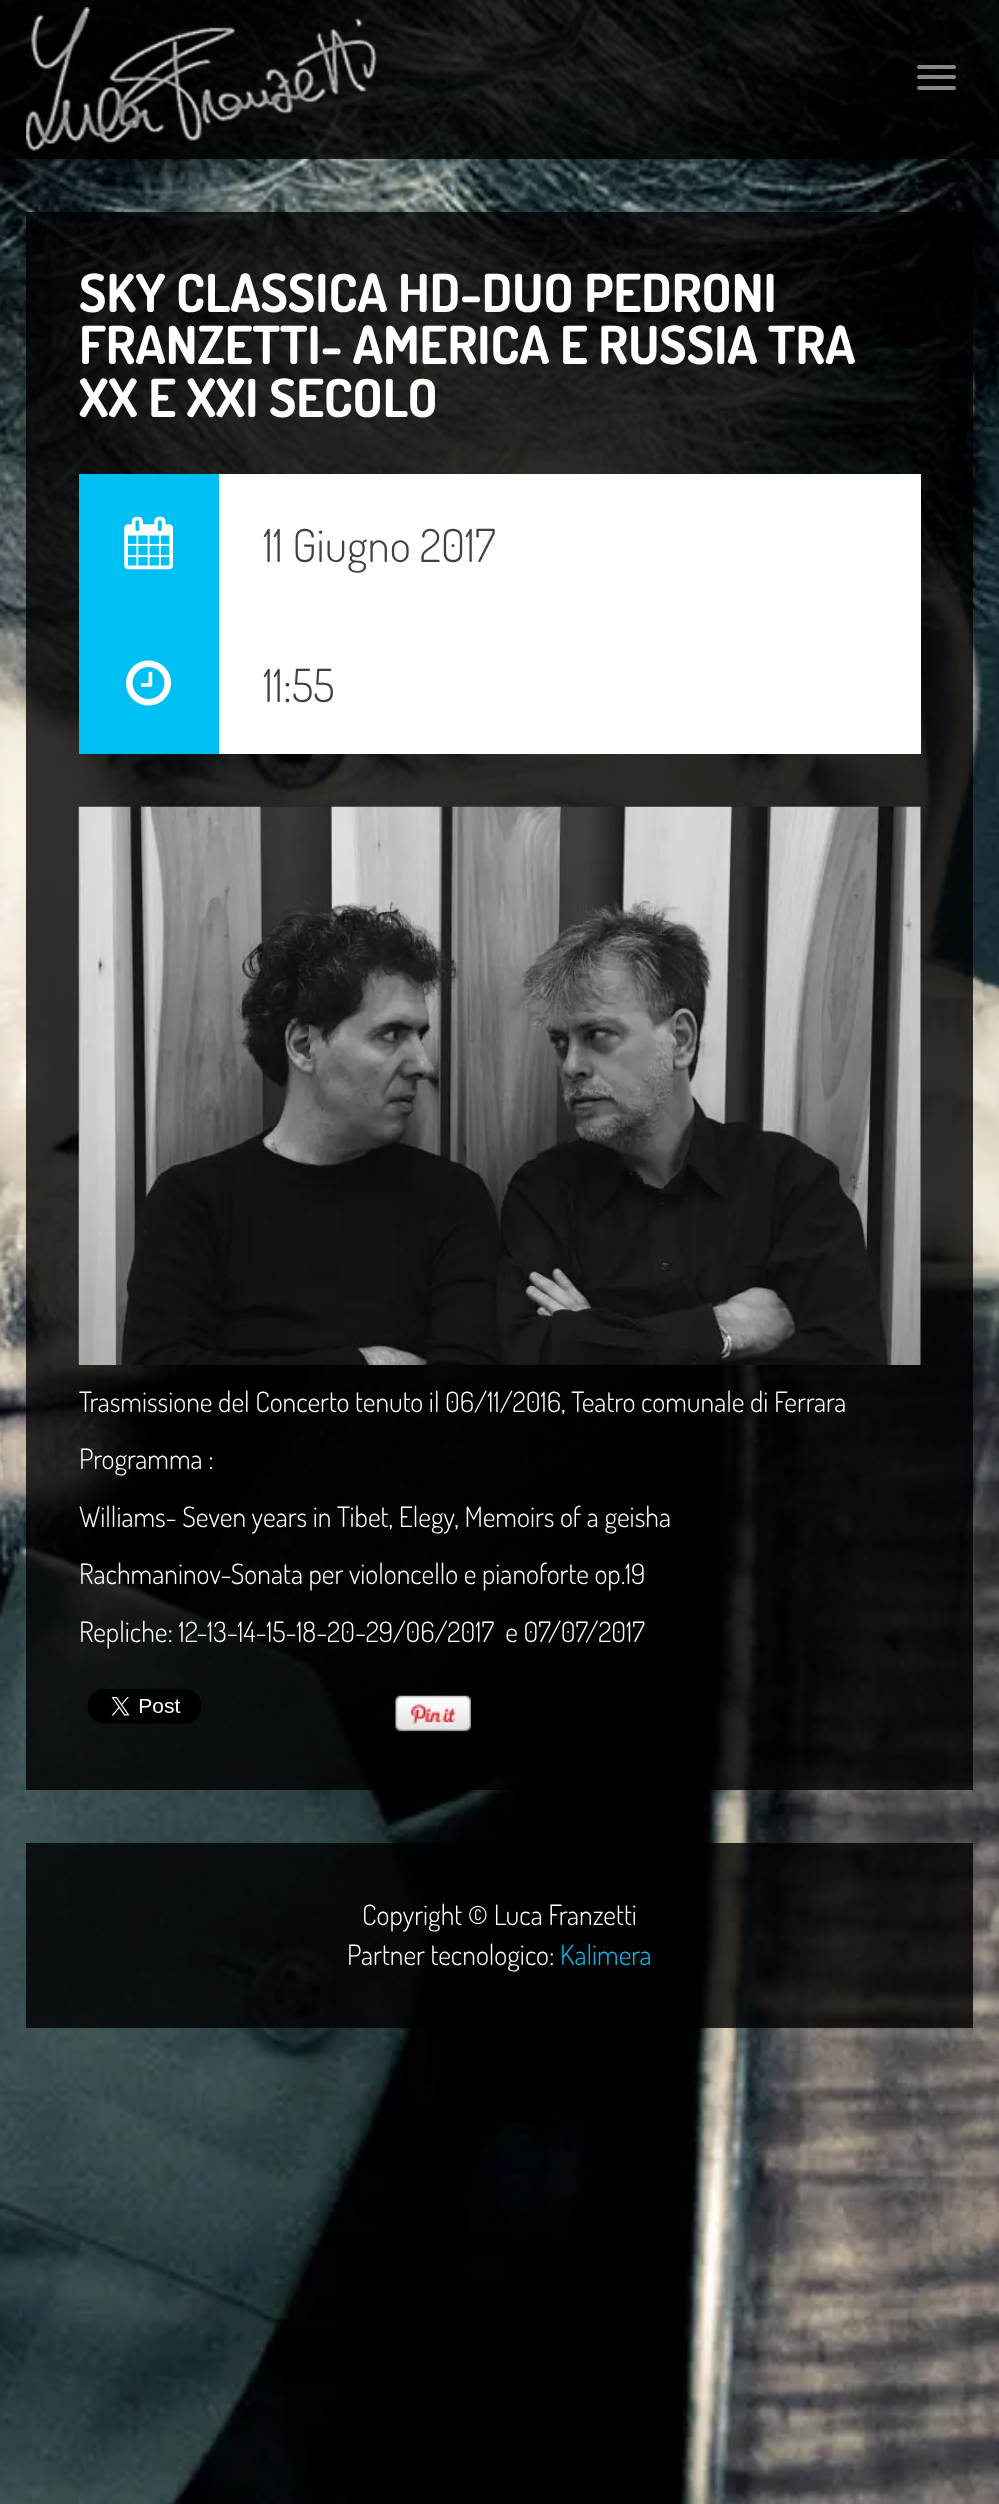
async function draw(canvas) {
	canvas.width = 999;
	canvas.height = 2504;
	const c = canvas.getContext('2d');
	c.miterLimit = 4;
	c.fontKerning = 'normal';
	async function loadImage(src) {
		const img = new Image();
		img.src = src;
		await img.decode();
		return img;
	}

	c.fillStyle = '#fff';
	c.fillRect(0, 0, 999, 2504);
	c.drawImage(await loadImage('img1.png'), 0, 0, 999, 2504);
	c.fillStyle = '#000000cc';
	c.fillRect(0, 0, 999, 159);
	c.drawImage(await loadImage('img2.png'), 26, 7, 351, 144);
	c.fillStyle = '#888';
	c.beginPath();
	c.roundRect(917, 65, 39, 4, 2);
	c.fill();
	c.beginPath();
	c.roundRect(917, 75, 39, 4, 2);
	c.fill();
	c.beginPath();
	c.roundRect(917, 86, 39, 4, 2);
	c.fill();
	c.fillStyle = '#000000cc';
	c.fillRect(26, 212, 947, 1578);
	c.font = 'bold 52.5px Dosis';
	c.fillStyle = '#fff';
	for (const [text, x, y] of [
		['SKY CLASSICA HD-DUO PEDRONI', 79, 312],
		['FRANZETTI- AMERICA E RUSSIA TRA', 79, 364],
		['XX E XXI SECOLO', 79, 417],
	]) {
		c.fillText(text, x, y);
	}
	c.fillRect(219, 474, 702, 280);
	c.fillStyle = '#00bff3';
	c.fillRect(79, 474, 140, 280);
	c.drawImage(await loadImage('img3.png'), 124, 516, 49, 54);
	c.font = '300 45.5px Dosis';
	c.fillStyle = '#404040';
	c.fillText('11 Giugno 2017', 263, 562);
	c.drawImage(await loadImage('img4.png'), 126, 660, 45, 46);
	c.fillText('11:55', 263, 702);
	c.drawImage(await loadImage('img5.png'), 78, 806, 843, 559);
	c.font = '300 28px Dosis';
	c.fillStyle = '#fff';
	for (const [text, x, y] of [
		['Trasmissione del Concerto tenuto il 06/11/2016, Teatro comunale di Ferrara', 79, 1412],
		['Programma :', 79, 1469],
		['Williams- Seven years in Tibet, Elegy, Memoirs of a geisha', 79, 1527],
		['Rachmaninov-Sonata per violoncello e pianoforte op.19', 79, 1584],
		['Repliche: 12-13-14-15-18-20-29/06/2017  e 07/07/2017', 79, 1642],
	]) {
		c.fillText(text, x, y);
	}
	c.drawImage(await loadImage('img6.png'), 87, 1689, 114, 35);
	c.drawImage(await loadImage('img7.png'), 395, 1695, 76, 37);
	c.fillStyle = '#000000cc';
	c.fillRect(26, 1843, 947, 185);
	c.fillStyle = '#fff';
	c.fillText('Copyright © Luca Franzetti', 362, 1925);
	c.fillText('Partner tecnologico:', 347, 1965);
	c.fillStyle = '#00bff3';
	c.fillText('Kalimera', 560, 1965);
}

draw(document.querySelector('canvas'));
